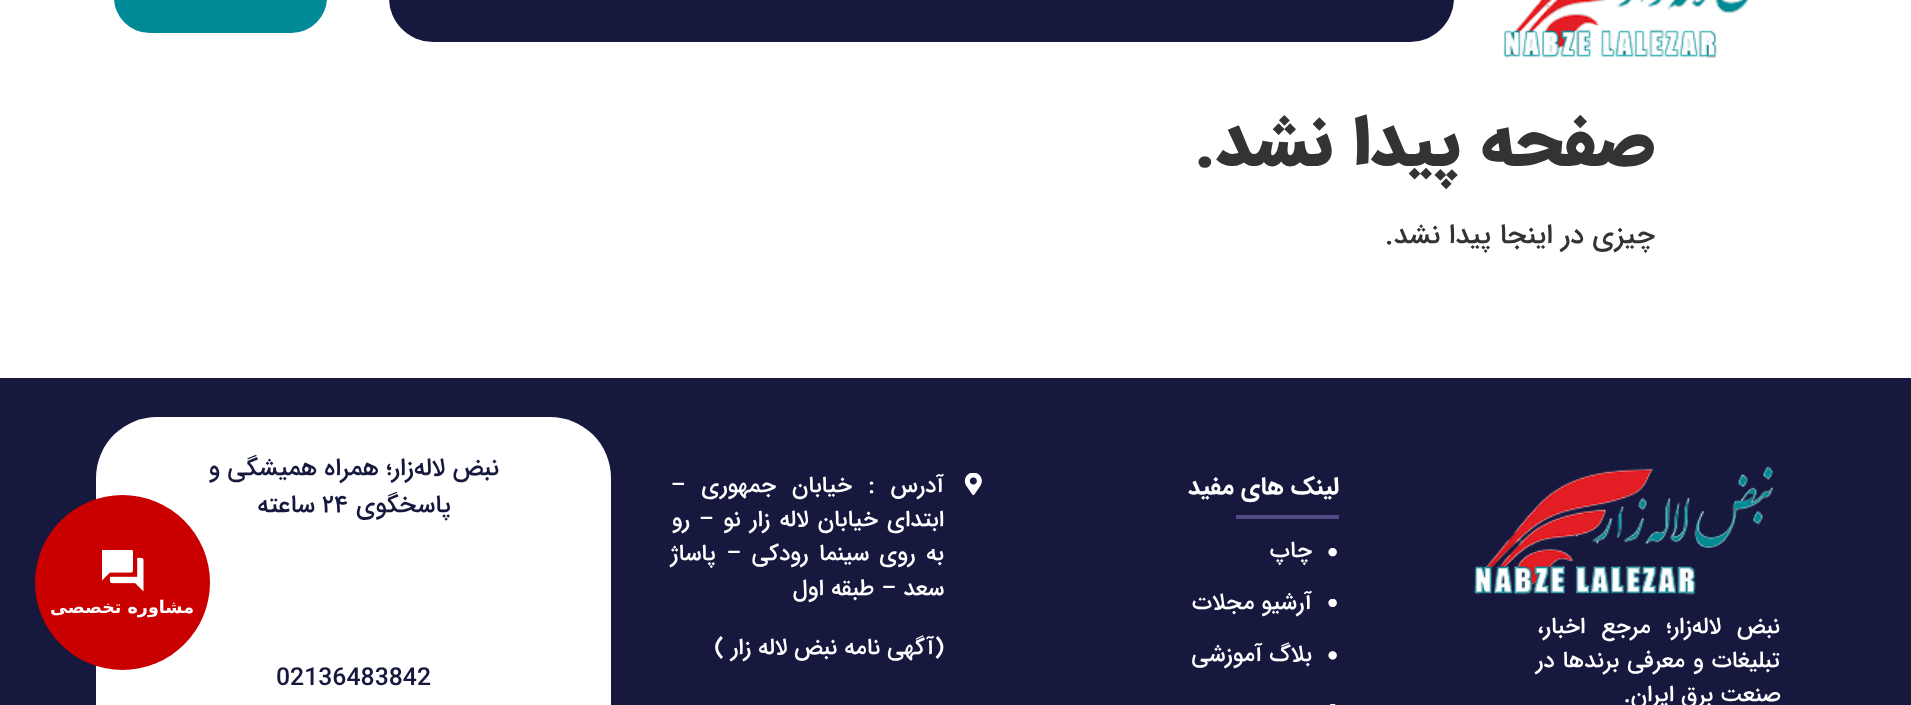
async function draw(canvas) {
	canvas.width = 1911;
	canvas.height = 705;
	const c = canvas.getContext('2d');
	c.miterLimit = 4;
	c.fontKerning = 'normal';
	async function loadImage(src) {
		const img = new Image();
		img.src = src;
		await img.decode();
		return img;
	}

	c.fillStyle = '#fff';
	c.fillRect(0, 0, 1911, 705);
	c.drawImage(await loadImage('img1.png'), 1503, 0, 246, 58);
	c.fillStyle = '#16183e';
	c.beginPath();
	c.roundRect(389, -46, 1065, 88, 45.5);
	c.fill();
	c.fillStyle = '#008a95';
	c.beginPath();
	c.roundRect(114, -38, 213, 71, 37.5);
	c.fill();
	c.direction = 'rtl';
	c.font = '900 70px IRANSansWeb';
	c.fillStyle = '#333';
	c.fillText('صفحه پیدا نشد.', 1655, 163);
	c.font = '500 28px IRANSansWeb';
	c.fillText('چیزی در اینجا پیدا نشد.', 1655, 243);
	c.fillStyle = '#16183e';
	c.fillRect(0, 378, 1911, 327);
	c.drawImage(await loadImage('img2.png'), 1473, 466, 301, 129);
	c.wordSpacing = '9px';
	c.font = '500 23px IRANSansWeb';
	c.fillStyle = '#fff';
	c.fillText('نبض لاله‌زار؛ مرجع اخبار،', 1780, 633);
	c.wordSpacing = '1px';
	c.fillText('تبلیغات و معرفی برندها در', 1780, 667);
	c.wordSpacing = '0px';
	c.fillText('صنعت برق ایران.', 1781, 701);
	c.font = 'bold 24.8px IRANSansWeb';
	c.fillText('لینک های مفید', 1339, 494);
	c.fillStyle = '#514b81';
	c.fillRect(1236, 515, 103, 4);
	c.drawImage(await loadImage('img3.png'), 1328, 548, 9, 9);
	c.font = '500 23px IRANSansWeb';
	c.fillStyle = '#fff';
	c.fillText('چاپ', 1312, 557);
	c.drawImage(await loadImage('img4.png'), 1328, 599, 9, 8);
	c.fillText('آرشیو مجلات', 1312, 609);
	c.drawImage(await loadImage('img5.png'), 1328, 651, 9, 9);
	c.fillText('بلاگ آموزشی', 1312, 661);
	c.drawImage(await loadImage('img6.png'), 1329, 704, 7, 1);
	c.drawImage(await loadImage('img7.png'), 964, 473, 18, 22);
	c.wordSpacing = '9px';
	c.fillText('آدرس : خیابان جمهوری –', 944, 492);
	c.wordSpacing = '2.25px';
	c.fillText('ابتدای خیابان لاله زار نو – رو', 944, 526);
	c.wordSpacing = '3.5px';
	c.fillText('به روی سینما رودکی – پاساژ', 944, 560);
	c.wordSpacing = '0px';
	c.fillText('سعد – طبقه اول', 944, 595);
	c.fillText('(آگهی نامه نبض لاله زار )', 944, 654);
	c.beginPath();
	c.roundRect(96, 417, 515, 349, 61);
	c.fill();
	c.font = '500 24.8px IRANSansWeb';
	c.fillStyle = '#16183e';
	c.fillText('نبض لاله‌زار؛ همراه همیشگی و', 499, 475);
	c.fillText('پاسخگوی', 451, 512);
	c.direction = 'ltr';
	c.fillText('۲۴', 322, 512);
	c.direction = 'rtl';
	c.fillText('ساعته', 315, 512);
	c.direction = 'ltr';
	c.fillText('02136483842', 276, 685);
	c.fillStyle = '#ca0000';
	c.beginPath();
	c.arc(122.5, 582.5, 87.5, 0, 2 * Math.PI);
	c.fill();
	c.drawImage(await loadImage('img8.png'), 102, 550, 42, 42);
	c.direction = 'rtl';
	c.font = 'bold 17.5px DejaVu Sans';
	c.fillStyle = '#fff';
	c.fillText('مشاوره تخصصی', 194, 613);
}

draw(document.querySelector('canvas'));
